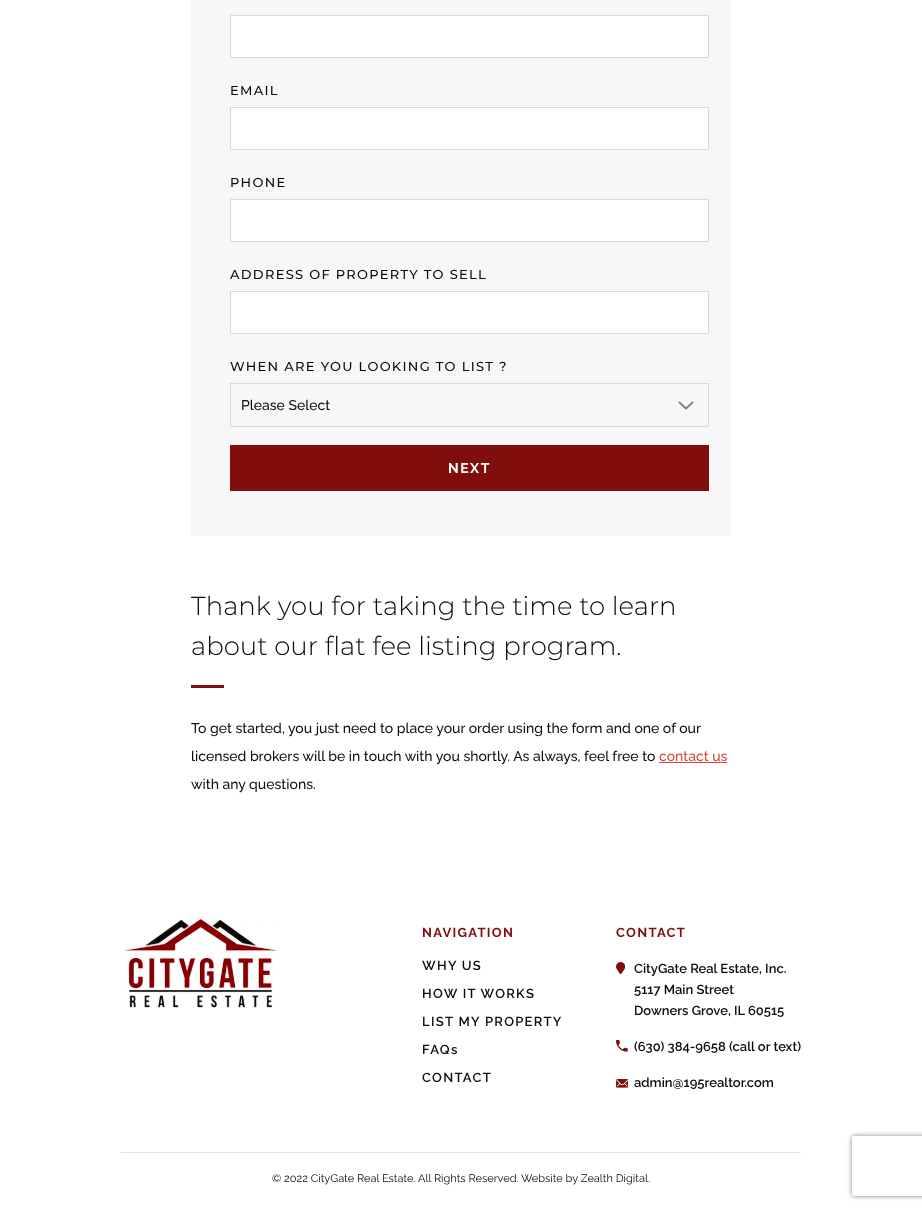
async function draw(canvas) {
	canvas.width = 922;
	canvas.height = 1210;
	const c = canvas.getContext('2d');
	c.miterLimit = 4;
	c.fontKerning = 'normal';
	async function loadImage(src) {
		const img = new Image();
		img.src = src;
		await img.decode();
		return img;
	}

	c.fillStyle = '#fff';
	c.fillRect(0, 0, 922, 1210);
	c.fillStyle = '#f7f7f7';
	c.fillRect(191, 0, 540, 536);
	c.fillStyle = '#fff';
	c.beginPath();
	c.rect(230.5, 15.5, 478, 42);
	c.fill();
	c.strokeStyle = '#d8d8d8';
	c.stroke();
	c.letterSpacing = '1.3px';
	c.font = '500 13px Montserrat';
	c.fillStyle = '#0d0c0a';
	c.fillText('EMAIL', 230, 95);
	c.fillStyle = '#fff';
	c.beginPath();
	c.rect(230.5, 107.5, 478, 42);
	c.fill();
	c.stroke();
	c.fillStyle = '#0d0c0a';
	c.fillText('PHONE', 230, 187);
	c.fillStyle = '#fff';
	c.beginPath();
	c.rect(230.5, 199.5, 478, 42);
	c.fill();
	c.stroke();
	c.fillStyle = '#0d0c0a';
	c.fillText('ADDRESS OF PROPERTY TO SELL', 230, 279);
	c.fillStyle = '#fff';
	c.beginPath();
	c.rect(230.5, 291.5, 478, 42);
	c.fill();
	c.stroke();
	c.fillStyle = '#0d0c0a';
	c.fillText('WHEN ARE YOU LOOKING TO LIST ?', 230, 371);
	c.strokeRect(230.5, 383.5, 478, 43);
	c.letterSpacing = '0px';
	c.font = '500 14px Raleway';
	c.fillText('Please Select', 241, 410);
	c.beginPath();
	c.moveTo(679.5, 402.5);
	c.lineTo(686, 408.5);
	c.lineTo(692.5, 402.5);
	c.strokeStyle = '#838383';
	c.lineWidth = 2;
	c.lineCap = 'round';
	c.lineJoin = 'round';
	c.stroke();
	c.fillStyle = '#800e0d';
	c.fillRect(230, 445, 479, 46);
	c.letterSpacing = '1.5px';
	c.font = 'bold 14px Raleway';
	c.fillStyle = '#fff';
	c.fillText('NEXT', 448, 473);
	c.letterSpacing = '0px';
	c.font = '300 26px Montserrat';
	c.fillStyle = '#0d0c0a';
	c.fillText('Thank you for taking the time to learn', 191, 615);
	c.fillText('about our flat fee listing program.', 191, 655);
	c.fillStyle = '#800e0d';
	c.fillRect(191, 685, 33, 3);
	c.font = '500 14px Raleway';
	c.fillStyle = '#0d0c0a';
	c.fillText('To get started, you just need to place your order using the form and one of our', 191, 733);
	c.fillText('licensed brokers will be in touch with you shortly. As always, feel free to', 191, 761);
	c.fillStyle = '#db4432';
	c.fillText('contact us', 659, 761);
	c.fillRect(659, 762, 68, 1);
	c.fillStyle = '#0d0c0a';
	c.fillText('with any questions.', 191, 789);
	c.drawImage(await loadImage('img1.png'), 125, 919, 152, 89);
	c.letterSpacing = '1.3px';
	c.font = 'bold 13px Raleway';
	c.fillStyle = '#800e0d';
	c.fillText('NAVIGATION', 422, 937);
	c.font = '600 13px Raleway';
	c.fillStyle = '#0d0c0a';
	for (const [text, x, y] of [
		['WHY US', 422, 970],
		['HOW IT WORKS', 422, 998],
		['LIST MY PROPERTY', 422, 1026],
		['FAQs', 422, 1054],
		['CONTACT', 422, 1082],
	]) {
		c.fillText(text, x, y);
	}
	c.font = 'bold 13px Raleway';
	c.fillStyle = '#800e0d';
	c.fillText('CONTACT', 616, 937);
	c.drawImage(await loadImage('img2.png'), 616, 962, 9, 12);
	c.letterSpacing = '0px';
	c.font = '600 13px Raleway';
	c.fillStyle = '#0d0c0a';
	for (const [text, x, y] of [
		['CityGate Real Estate, Inc.', 634, 973],
		['5117 Main Street', 634, 994],
		['Downers Grove, IL 60515', 634, 1015],
	]) {
		c.fillText(text, x, y);
	}
	c.drawImage(await loadImage('img3.png'), 616, 1040, 12, 12);
	c.fillText('(630) 384-9658 (call or text)', 634, 1051);
	c.drawImage(await loadImage('img4.png'), 616, 1079, 12, 9);
	c.fillText('admin@195realtor.com', 634, 1087);
	c.fillStyle = '#e2e2e2';
	c.fillRect(121, 1152, 680, 1);
	c.font = '11px Raleway';
	c.fillStyle = '#0d0c0a';
	c.fillText('© 2022 CityGate Real Estate. All Rights Reserved. Website by Zealth Digital.', 272, 1182);
	c.save();
	c.beginPath();
	c.moveTo(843, 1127);
	c.lineTo(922, 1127);
	c.lineTo(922, 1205);
	c.lineTo(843, 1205);
	c.closePath();
	c.moveTo(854, 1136);
	c.lineTo(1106, 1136);
	c.bezierCurveTo(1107, 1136, 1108, 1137, 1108, 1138);
	c.lineTo(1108, 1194);
	c.bezierCurveTo(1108, 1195, 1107, 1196, 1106, 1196);
	c.lineTo(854, 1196);
	c.bezierCurveTo(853, 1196, 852, 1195, 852, 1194);
	c.lineTo(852, 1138);
	c.bezierCurveTo(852, 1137, 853, 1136, 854, 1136);
	c.closePath();
	c.clip('evenodd');
	c.fillStyle = '#808080';
	c.filter = 'blur(2.5px)';
	c.beginPath();
	c.roundRect(852, 1136, 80, 60, 2);
	c.fill();
	c.filter = 'none';
	c.restore();
}

draw(document.querySelector('canvas'));
